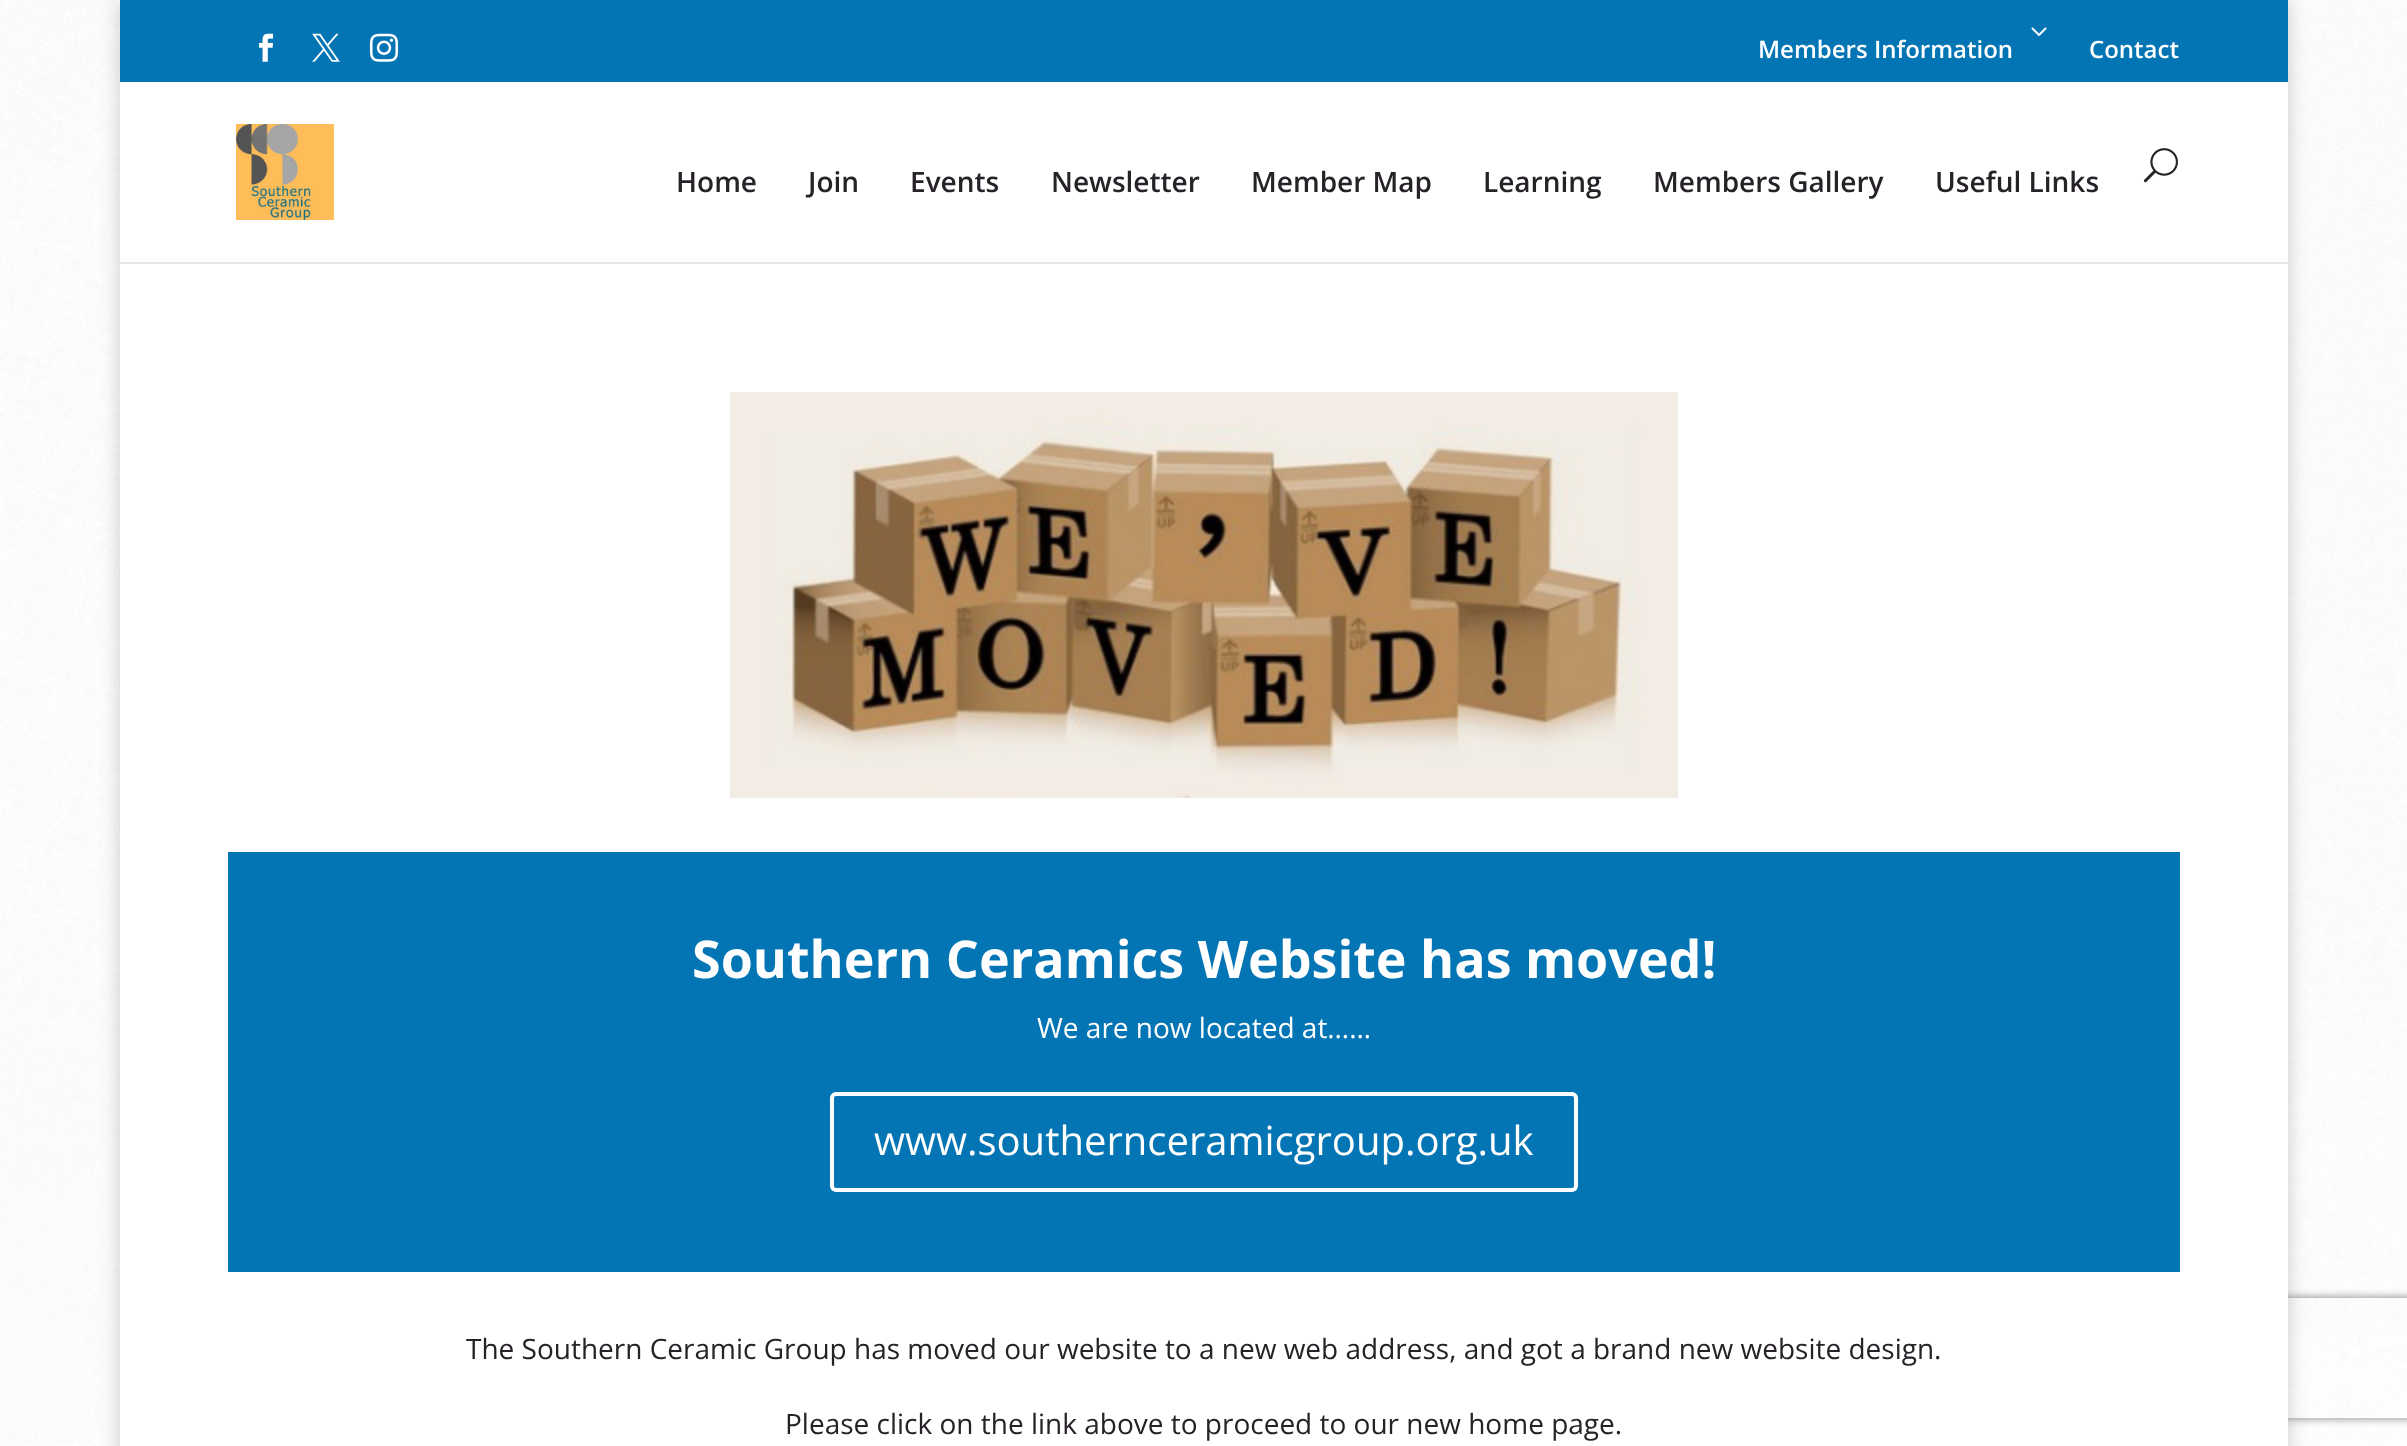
async function draw(canvas) {
	canvas.width = 2407;
	canvas.height = 1446;
	const c = canvas.getContext('2d');
	c.miterLimit = 4;
	c.fontKerning = 'normal';
	async function loadImage(src) {
		const img = new Image();
		img.src = src;
		await img.decode();
		return img;
	}

	c.fillStyle = '#fff';
	c.fillRect(0, 0, 2407, 1446);
	c.drawImage(await loadImage('img1.png'), 0, 0, 2407, 1446);
	c.fillStyle = '#00000033';
	c.filter = 'blur(10px)';
	c.beginPath();
	c.rect(120, 0, 2168, 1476);
	c.fill();
	c.filter = 'none';
	c.fillStyle = '#0375b4';
	c.fillRect(120, 0, 2168, 82);
	c.drawImage(await loadImage('img2.png'), 259, 33, 15, 29);
	c.drawImage(await loadImage('img3.png'), 312, 33, 28, 29);
	c.drawImage(await loadImage('img4.png'), 370, 33, 28, 29);
	c.drawImage(await loadImage('img5.png'), 2031, 27, 16, 9);
	c.font = '600 24px Open Sans';
	c.fillStyle = '#fff';
	c.fillText('Members Information', 1758, 58);
	c.fillText('Contact', 2089, 58);
	c.fillStyle = '#e6e6e6';
	c.fillRect(120, 262, 2168, 2);
	c.fillStyle = '#fff';
	c.fillRect(120, 82, 2168, 180);
	c.drawImage(await loadImage('img6.png'), 236, 124, 98, 96);
	c.font = '600 28px Open Sans';
	c.fillStyle = '#262228';
	for (const [text, x, y] of [
		['Home', 676, 192],
		['Join', 808, 192],
		['Events', 910, 192],
		['Newsletter', 1051, 192],
		['Member Map', 1251, 192],
		['Learning', 1483, 192],
		['Members Gallery', 1653, 192],
		['Useful Links', 1935, 192],
	]) {
		c.fillText(text, x, y);
	}
	c.drawImage(await loadImage('img7.png'), 2143, 148, 35, 35);
	c.save();
	c.beginPath();
	c.moveTo(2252, 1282);
	c.lineTo(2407, 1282);
	c.lineTo(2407, 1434);
	c.lineTo(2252, 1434);
	c.closePath();
	c.moveTo(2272, 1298);
	c.lineTo(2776, 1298);
	c.bezierCurveTo(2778, 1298, 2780, 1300, 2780, 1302);
	c.lineTo(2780, 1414);
	c.bezierCurveTo(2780, 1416, 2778, 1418, 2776, 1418);
	c.lineTo(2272, 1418);
	c.bezierCurveTo(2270, 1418, 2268, 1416, 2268, 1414);
	c.lineTo(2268, 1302);
	c.bezierCurveTo(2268, 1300, 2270, 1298, 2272, 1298);
	c.closePath();
	c.clip('evenodd');
	c.fillStyle = '#808080';
	c.filter = 'blur(5px)';
	c.beginPath();
	c.roundRect(2268, 1298, 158, 120, 4);
	c.fill();
	c.filter = 'none';
	c.restore();
	c.fillStyle = '#fff';
	c.fillRect(120, 264, 2168, 1182);
	c.drawImage(await loadImage('img8.png'), 730, 392, 948, 406);
	c.fillStyle = '#0375b4';
	c.fillRect(228, 852, 1952, 420);
	c.font = 'bold 52px Open Sans';
	c.fillStyle = '#fff';
	c.fillText('Southern Ceramics Website has moved!', 692, 978);
	c.font = '28px Open Sans';
	c.fillText('We are now located at……', 1037, 1038);
	c.beginPath();
	c.roundRect(832, 1094, 744, 96, 4);
	c.strokeStyle = '#fff';
	c.lineWidth = 4;
	c.stroke();
	c.font = '40px Open Sans';
	c.fillText('www.southernceramicgroup.org.uk', 874, 1155);
	c.font = '28px Open Sans';
	c.fillStyle = '#262228';
	c.fillText('The Southern Ceramic Group has moved our website to a new web address, and got a brand new website design.', 466, 1359);
	c.fillText('Please click on the link above to proceed to our new home page.', 785, 1434);
}

draw(document.querySelector('canvas'));
